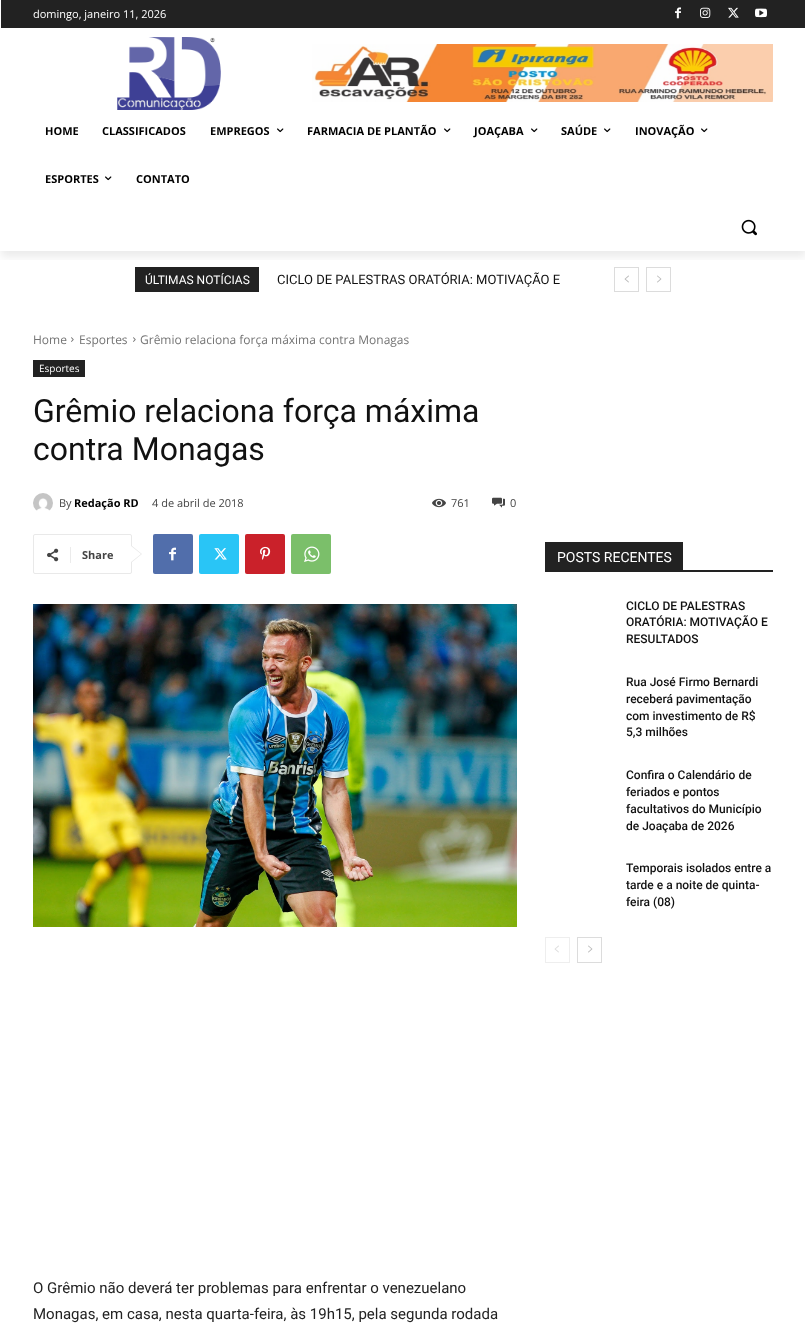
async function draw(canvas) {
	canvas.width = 805;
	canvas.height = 1341;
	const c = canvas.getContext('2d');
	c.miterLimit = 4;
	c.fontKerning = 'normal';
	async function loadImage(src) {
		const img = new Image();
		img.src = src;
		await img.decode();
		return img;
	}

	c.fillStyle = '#fff';
	c.fillRect(0, 0, 805, 1341);
	c.fillStyle = '#222';
	c.fillRect(1, 0, 804, 28);
	c.drawImage(await loadImage('img1.png'), 675, 7, 6, 12);
	c.drawImage(await loadImage('img2.png'), 700, 7, 11, 11);
	c.drawImage(await loadImage('img3.png'), 728, 7, 11, 11);
	c.drawImage(await loadImage('img4.png'), 755, 8, 12, 10);
	c.drawImage(await loadImage('img5.png'), 117, 37, 104, 73);
	c.drawImage(await loadImage('img6.png'), 312, 44, 461, 58);
	c.fillRect(135, 267, 124, 25);
	c.strokeStyle = '#dcdcdc';
	c.strokeRect(614.5, 267.5, 24, 24);
	c.strokeRect(646.5, 267.5, 24, 24);
	c.save();
	c.beginPath();
	c.rect(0, 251, 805, 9);
	c.clip();
	c.fillStyle = '#00000014';
	c.filter = 'blur(4px)';
	c.beginPath();
	c.rect(1, 6, 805, 251);
	c.fill();
	c.filter = 'none';
	c.restore();
	c.font = '11px Open Sans';
	c.fillStyle = '#fff';
	c.fillText('domingo, janeiro 11, 2026', 33, 18);
	c.font = 'bold 11px Open Sans';
	c.fillStyle = '#000';
	for (const [text, x, y] of [
		['HOME', 45, 135],
		['CLASSIFICADOS', 102, 135],
		['EMPREGOS', 210, 135],
	]) {
		c.fillText(text, x, y);
	}
	c.drawImage(await loadImage('img7.png'), 277, 128, 7, 5);
	c.fillText('FARMACIA DE PLANTÃO', 307, 135);
	c.drawImage(await loadImage('img7.png'), 444, 128, 7, 5);
	c.fillText('JOAÇABA', 474, 135);
	c.drawImage(await loadImage('img7.png'), 531, 128, 7, 5);
	c.fillText('SAÚDE', 561, 135);
	c.drawImage(await loadImage('img7.png'), 604, 128, 7, 5);
	c.fillText('INOVAÇÃO', 635, 135);
	c.drawImage(await loadImage('img7.png'), 701, 128, 7, 5);
	c.fillText('ESPORTES', 45, 183);
	c.drawImage(await loadImage('img7.png'), 105, 176, 7, 5);
	c.fillText('CONTATO', 136, 183);
	c.drawImage(await loadImage('img8.png'), 741, 219, 16, 17);
	c.font = '12px Roboto';
	c.fillStyle = '#fff';
	c.fillText('ÚLTIMAS NOTÍCIAS', 145, 284);
	c.font = '13px Roboto';
	c.fillStyle = '#111';
	c.fillText('CICLO DE PALESTRAS ORATÓRIA: MOTIVAÇÃO E', 277, 284);
	c.drawImage(await loadImage('img9.png'), 624, 275, 5, 8);
	c.drawImage(await loadImage('img10.png'), 657, 275, 5, 8);
	c.font = '12px Open Sans';
	c.fillStyle = '#747474';
	c.fillText('Home', 33, 344);
	c.drawImage(await loadImage('img11.png'), 71, 337, 3, 5);
	c.fillText('Esportes', 79, 344);
	c.drawImage(await loadImage('img11.png'), 133, 337, 3, 5);
	c.fillText('Grêmio relaciona força máxima contra Monagas', 140, 344);
	c.fillStyle = '#222';
	c.fillRect(33, 360, 52, 17);
	c.font = '10px Open Sans';
	c.fillStyle = '#fff';
	c.fillText('Esportes', 39, 372);
	c.font = '32px Roboto';
	c.fillStyle = '#111';
	c.fillText('Grêmio relaciona força máxima', 33, 422);
	c.fillText('contra Monagas', 33, 460);
	c.drawImage(await loadImage('img12.png'), 33, 493, 20, 18);
	c.font = '11px Open Sans';
	c.fillStyle = '#444';
	c.fillText('By', 59, 507);
	c.font = 'bold 11px Open Sans';
	c.fillStyle = '#000';
	c.fillText('Redação RD', 74, 507);
	c.font = '11px Open Sans';
	c.fillStyle = '#444';
	c.fillText('4 de abril de 2018', 152, 507);
	c.drawImage(await loadImage('img13.png'), 432, 498, 14, 10);
	c.fillText('761', 451, 507);
	c.drawImage(await loadImage('img14.png'), 492, 497, 13, 11);
	c.fillText('0', 510, 507);
	c.beginPath();
	c.roundRect(33.5, 534.5, 98, 39, 1.5);
	c.strokeStyle = '#e9e9e9';
	c.stroke();
	c.fillStyle = '#e9e9e9';
	c.beginPath();
	c.moveTo(131, 563);
	c.lineTo(131, 545);
	c.lineTo(142, 554);
	c.closePath();
	c.fill();
	c.drawImage(await loadImage('img15.png'), 47, 548, 12, 14);
	c.fillStyle = '#ebebeb';
	c.fillRect(70, 547, 1, 16);
	c.font = 'bold 11px Open Sans';
	c.fillStyle = '#444';
	c.fillText('Share', 82, 559);
	c.fillStyle = '#fff';
	c.beginPath();
	c.moveTo(131, 562);
	c.lineTo(131, 546);
	c.lineTo(141, 554);
	c.closePath();
	c.fill();
	c.fillStyle = '#516eab';
	c.beginPath();
	c.roundRect(153, 534, 40, 40, 2);
	c.fill();
	c.drawImage(await loadImage('img16.png'), 169, 547, 7, 14);
	c.fillStyle = '#29c5f6';
	c.beginPath();
	c.roundRect(199, 534, 40, 40, 2);
	c.fill();
	c.drawImage(await loadImage('img17.png'), 214, 548, 13, 12);
	c.fillStyle = '#ca212a';
	c.beginPath();
	c.roundRect(245, 534, 40, 40, 2);
	c.fill();
	c.drawImage(await loadImage('img18.png'), 260, 546, 11, 14);
	c.fillStyle = '#7bbf6a';
	c.beginPath();
	c.roundRect(291, 534, 40, 40, 2);
	c.fill();
	c.drawImage(await loadImage('img19.png'), 304, 546, 16, 16);
	c.drawImage(await loadImage('img20.png'), 33, 604, 484, 323);
	c.font = '15px Roboto';
	c.fillStyle = '#222';
	c.fillText('O Grêmio não deverá ter problemas para enfrentar o venezuelano', 33, 1293);
	c.fillText('Monagas, em casa, nesta quarta-feira, às 19h15, pela segunda rodada', 33, 1319);
	c.fillRect(545, 570, 228, 2);
	c.fillRect(545, 542, 138, 28);
	c.font = '14px Roboto';
	c.fillStyle = '#fff';
	c.fillText('POSTS RECENTES', 557, 562);
	c.font = '500 12px Roboto';
	c.fillStyle = '#111';
	for (const [text, x, y] of [
		['CICLO DE PALESTRAS', 626, 610],
		['ORATÓRIA: MOTIVAÇÃO E', 626, 626],
		['RESULTADOS', 626, 643],
		['Rua José Firmo Bernardi', 626, 686],
		['receberá pavimentação', 626, 703],
		['com investimento de R$', 626, 720],
		['5,3 milhões', 626, 736],
		['Confira o Calendário de', 626, 779],
		['feriados e pontos', 626, 796],
		['facultativos do Município', 626, 813],
		['de Joaçaba de 2026', 626, 830],
		['Temporais isolados entre a', 626, 872],
		['tarde e a noite de quinta-', 626, 889],
		['feira (08)', 626, 906],
	]) {
		c.fillText(text, x, y);
	}
	c.strokeStyle = '#eee';
	c.strokeRect(545.5, 937.5, 24, 25);
	c.drawImage(await loadImage('img21.png'), 554, 945, 5, 8);
	c.strokeStyle = '#dcdcdc';
	c.strokeRect(577.5, 937.5, 24, 25);
	c.drawImage(await loadImage('img10.png'), 588, 945, 5, 8);
}

draw(document.querySelector('canvas'));
